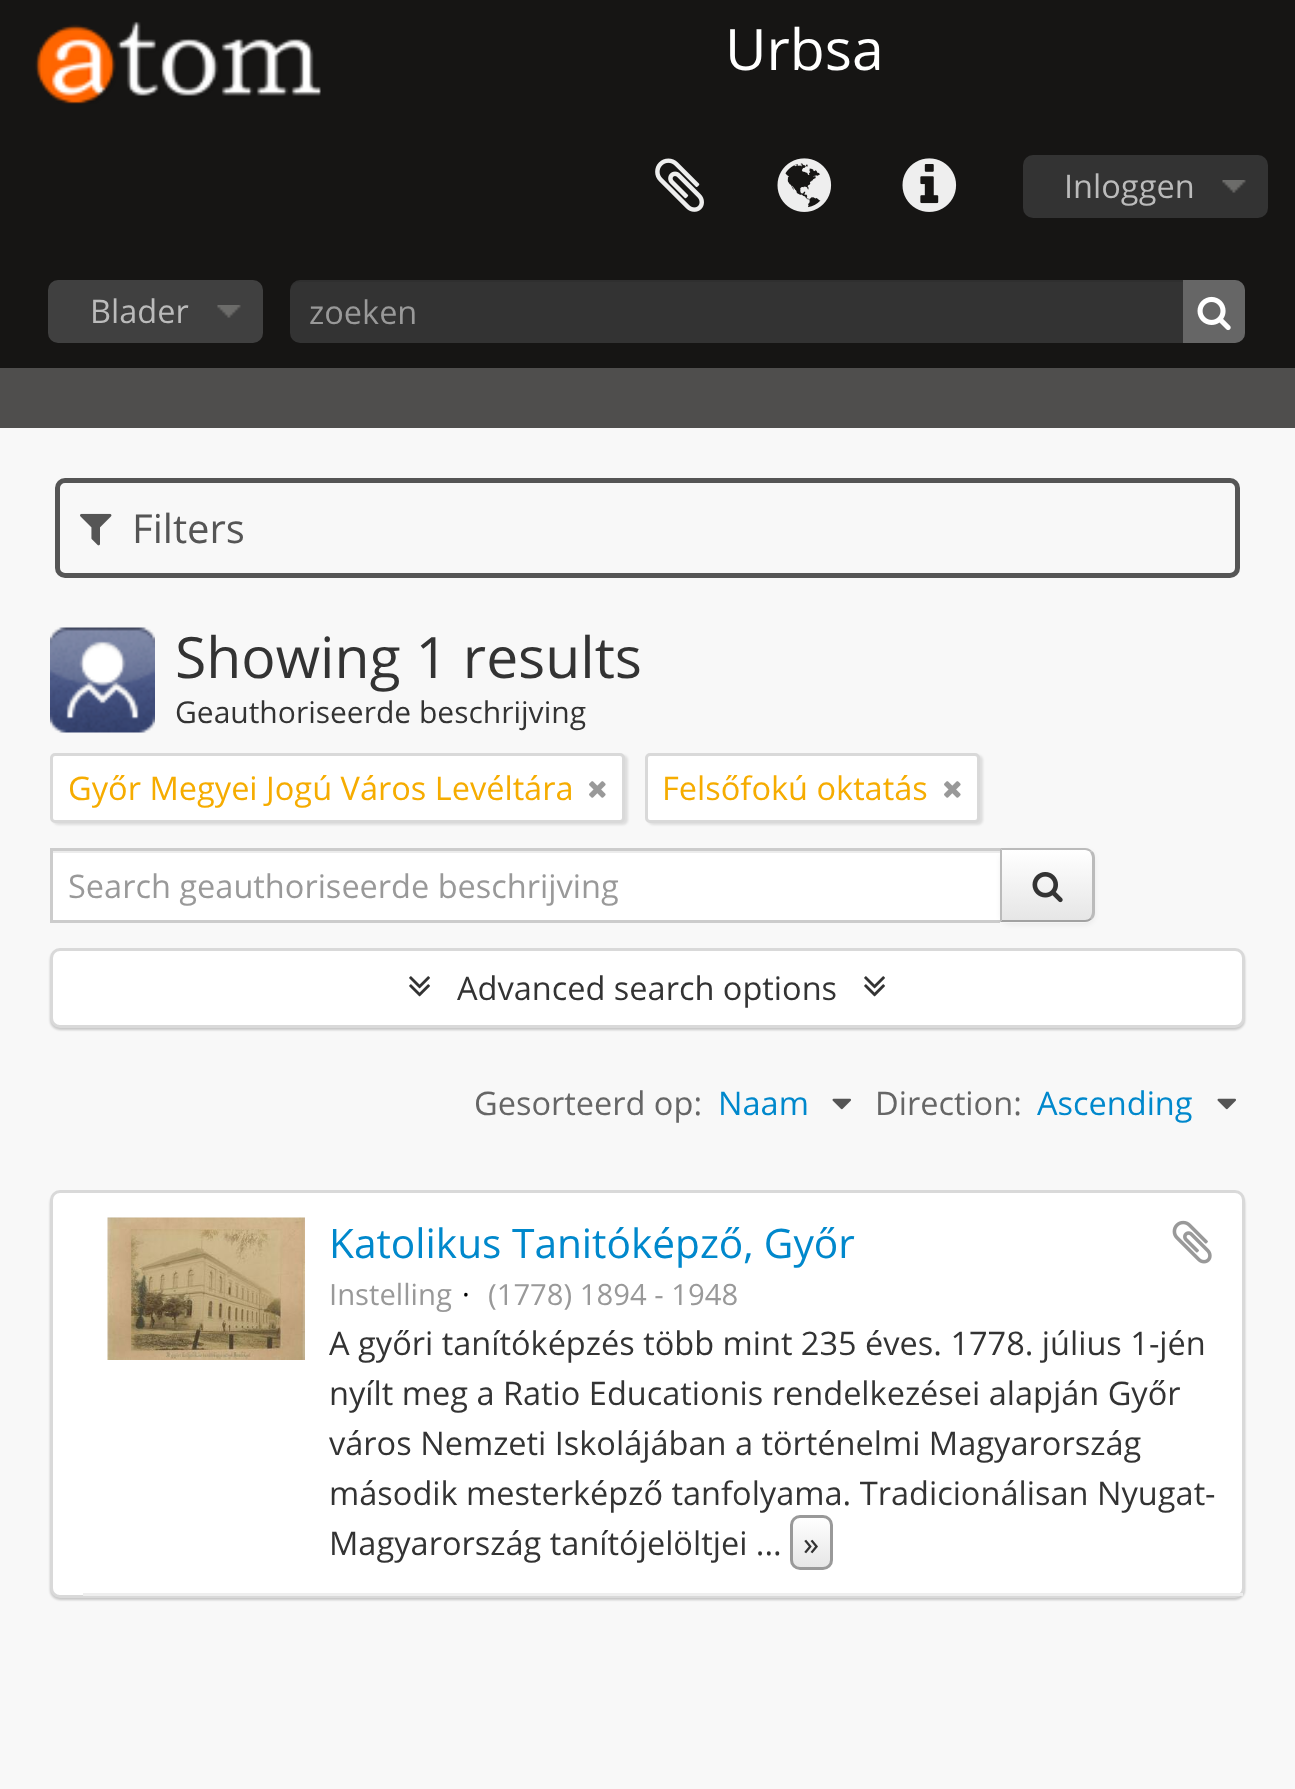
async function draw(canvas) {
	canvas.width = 1295;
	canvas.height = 1789;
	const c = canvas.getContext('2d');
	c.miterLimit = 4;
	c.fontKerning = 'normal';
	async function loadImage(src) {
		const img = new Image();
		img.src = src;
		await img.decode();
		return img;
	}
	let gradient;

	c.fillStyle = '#f8f8f8';
	c.fillRect(0, 0, 1295, 1789);
	c.fillStyle = '#161514';
	c.fillRect(0, 0, 1295, 368);
	c.drawImage(await loadImage('img1.png'), 35, 21, 286, 83);
	c.font = '57px Open Sans';
	c.fillStyle = '#fff';
	c.fillText('Urbsa', 725, 70);
	c.drawImage(await loadImage('img2.png'), 655, 158, 49, 54);
	c.drawImage(await loadImage('img3.png'), 777, 158, 55, 54);
	c.drawImage(await loadImage('img4.png'), 902, 158, 55, 54);
	c.fillStyle = '#333';
	c.beginPath();
	c.roundRect(1023, 155, 245, 63, 10);
	c.fill();
	c.drawImage(await loadImage('img5.png'), 1222, 180, 24, 13);
	c.font = '32.5px Open Sans';
	c.fillStyle = '#bbb';
	c.fillText('Inloggen', 1064, 198);
	c.fillStyle = '#404040';
	c.beginPath();
	c.roundRect(48, 280, 215, 63, 10);
	c.fill();
	c.drawImage(await loadImage('img6.png'), 217, 305, 24, 13);
	c.fillStyle = '#bbb';
	c.fillText('Blader', 90, 323);
	c.fillStyle = '#333';
	c.beginPath();
	c.roundRect(290, 280, 955, 63, 10);
	c.fill();
	c.fillStyle = '#00000012';
	c.beginPath();
	c.moveTo(300, 282);
	c.lineTo(1235, 282);
	c.bezierCurveTo(1241, 282, 1245, 287, 1245, 292);
	c.lineTo(1245, 290);
	c.bezierCurveTo(1245, 284, 1241, 280, 1235, 280);
	c.lineTo(300, 280);
	c.bezierCurveTo(294, 280, 290, 284, 290, 290);
	c.lineTo(290, 292);
	c.bezierCurveTo(290, 287, 294, 282, 300, 282);
	c.closePath();
	c.fill();
	c.fillStyle = '#999';
	c.fillText('zoeken', 309, 324);
	c.fillStyle = '#666';
	c.beginPath();
	c.roundRect(1183, 280, 62, 63, [0, 10, 10, 0]);
	c.fill();
	c.drawImage(await loadImage('img7.png'), 1197, 296, 34, 35);
	c.fillStyle = '#4f4e4d';
	c.fillRect(0, 368, 1295, 60);
	c.beginPath();
	c.roundRect(57.5, 480.5, 1180, 95, 7.5);
	c.strokeStyle = '#555';
	c.lineWidth = 5;
	c.stroke();
	c.drawImage(await loadImage('img8.png'), 80, 513, 32, 33);
	c.font = '40px Open Sans';
	c.fillStyle = '#555';
	c.fillText('Filters', 132, 543);
	c.drawImage(await loadImage('img9.png'), 50, 627, 105, 106);
	c.font = '57px Open Sans';
	c.fillStyle = '#333';
	c.fillText('Showing 1 results', 175, 678);
	c.font = '30px Open Sans';
	c.fillText('Geauthoriseerde beschrijving', 175, 723);
	c.fillStyle = '#0000001a';
	c.filter = 'blur(1px)';
	c.beginPath();
	c.roundRect(53, 755, 575, 70, 5);
	c.fill();
	c.filter = 'none';
	c.fillStyle = '#fff';
	c.beginPath();
	c.roundRect(51.5, 754.5, 572, 67, 3.5);
	c.fill();
	c.strokeStyle = '#d9d9d9';
	c.lineWidth = 3;
	c.stroke();
	c.font = '32.5px Open Sans';
	c.fillStyle = '#f6ac00';
	c.fillText('Győr Megyei Jogú Város Levéltára', 68, 800);
	c.drawImage(await loadImage('img10.png'), 589, 781, 17, 17);
	c.fillStyle = '#0000001a';
	c.filter = 'blur(1px)';
	c.beginPath();
	c.roundRect(648, 755, 335, 70, 5);
	c.fill();
	c.filter = 'none';
	c.fillStyle = '#fff';
	c.beginPath();
	c.roundRect(646.5, 754.5, 332, 67, 3.5);
	c.fill();
	c.stroke();
	c.fillStyle = '#f6ac00';
	c.fillText('Felsőfokú oktatás', 662, 800);
	c.drawImage(await loadImage('img10.png'), 944, 781, 17, 17);
	c.fillStyle = '#fff';
	c.fillRect(53, 853, 947, 67);
	c.fillStyle = '#ececec';
	c.fillRect(53, 851, 950, 2);
	c.strokeStyle = '#ccc';
	c.strokeRect(51.5, 849.5, 952, 72);
	c.fillStyle = '#999';
	c.fillText('Search geauthoriseerde beschrijving', 68, 898);
	c.fillStyle = '#0000000d';
	c.filter = 'blur(2.5px)';
	c.beginPath();
	c.roundRect(1000, 850, 95, 75, 10);
	c.fill();
	c.filter = 'none';
	c.fillStyle = '#f5f5f5';
	c.beginPath();
	c.roundRect(1000, 848, 95, 75, [0, 10, 10, 0]);
	c.fill();
	c.save();
	c.beginPath();
	c.roundRect(1000, 848, 95, 75, [0, 10, 10, 0]);
	c.clip();
	gradient = c.createLinearGradient(1048, 850, 1048, 920);
	gradient.addColorStop(0, '#fff');
	gradient.addColorStop(1, '#e6e6e6');
	c.fillStyle = gradient;
	c.fillRect(1002, 850, 93, 70);
	c.restore();
	c.fillStyle = '#ffffff33';
	c.beginPath();
	c.moveTo(1003, 850);
	c.lineTo(1003, 852);
	c.lineTo(1086, 852);
	c.bezierCurveTo(1094, 854, 1092, 864, 1092, 869);
	c.lineTo(1092, 916);
	c.bezierCurveTo(1093, 915, 1093, 913, 1093, 912);
	c.lineTo(1093, 858);
	c.bezierCurveTo(1093, 854, 1089, 850, 1085, 850);
	c.closePath();
	c.fill();
	c.fillStyle = '#bbb';
	c.beginPath();
	c.moveTo(1092, 851);
	c.bezierCurveTo(1090, 849, 1088, 848, 1085, 848);
	c.lineTo(1000, 848);
	c.lineTo(1002, 850);
	c.lineTo(1085, 850);
	c.bezierCurveTo(1087, 850, 1089, 851, 1090, 852);
	c.closePath();
	c.fill();
	c.beginPath();
	c.moveTo(1092, 851);
	c.bezierCurveTo(1094, 852, 1095, 855, 1095, 858);
	c.lineTo(1095, 912);
	c.bezierCurveTo(1095, 915, 1094, 918, 1092, 919);
	c.lineTo(1090, 918);
	c.bezierCurveTo(1091, 916, 1092, 914, 1092, 912);
	c.lineTo(1092, 858);
	c.bezierCurveTo(1092, 856, 1091, 854, 1090, 852);
	c.closePath();
	c.fill();
	c.fillStyle = '#a2a2a2';
	c.beginPath();
	c.moveTo(1092, 919);
	c.bezierCurveTo(1090, 921, 1088, 922, 1085, 922);
	c.lineTo(1000, 922);
	c.lineTo(1002, 920);
	c.lineTo(1085, 920);
	c.bezierCurveTo(1087, 920, 1089, 919, 1090, 918);
	c.closePath();
	c.fill();
	c.fillStyle = '#bbb';
	c.beginPath();
	c.moveTo(1002, 850);
	c.lineTo(1002, 920);
	c.lineTo(1000, 922);
	c.lineTo(1000, 848);
	c.closePath();
	c.fill();
	c.drawImage(await loadImage('img11.png'), 1032, 872, 31, 31);
	c.fillStyle = '#00000033';
	c.filter = 'blur(1px)';
	c.beginPath();
	c.roundRect(50, 950, 1195, 80, 10);
	c.fill();
	c.filter = 'none';
	c.fillStyle = '#fff';
	c.beginPath();
	c.roundRect(51.5, 949.5, 1192, 77, 8.5);
	c.fill();
	c.strokeStyle = '#d9d9d9';
	c.stroke();
	c.drawImage(await loadImage('img12.png'), 409, 976, 21, 21);
	c.fillStyle = '#333';
	c.fillText('Advanced search options', 457, 1000);
	c.drawImage(await loadImage('img12.png'), 864, 976, 21, 21);
	c.fillStyle = '#666';
	c.fillText('Gesorteerd op:', 474, 1115);
	c.fillStyle = '#08c';
	c.fillText('Naam', 718, 1115);
	c.drawImage(await loadImage('img13.png'), 832, 1098, 19, 12);
	c.fillStyle = '#666';
	c.fillText('Direction:', 875, 1115);
	c.fillStyle = '#08c';
	c.fillText('Ascending', 1037, 1115);
	c.drawImage(await loadImage('img13.png'), 1217, 1098, 19, 12);
	c.fillStyle = '#00000033';
	c.filter = 'blur(1px)';
	c.beginPath();
	c.roundRect(50, 1193, 1195, 407, 10);
	c.fill();
	c.filter = 'none';
	c.fillStyle = '#fff';
	c.beginPath();
	c.roundRect(51.5, 1191.5, 1192, 405, 8.5);
	c.fill();
	c.stroke();
	c.fillStyle = '#eee';
	c.fillRect(83, 1593, 1160, 3);
	c.drawImage(await loadImage('img14.png'), 107, 1217, 198, 143);
	c.font = '40.6px Open Sans';
	c.fillStyle = '#08c';
	c.fillText('Katolikus Tanitóképző, Győr', 329, 1258);
	c.drawImage(await loadImage('img15.png'), 1172, 1220, 40, 44);
	c.font = '29.25px Open Sans';
	c.fillStyle = '#999';
	c.fillText('Instelling', 329, 1305);
	c.fillStyle = '#000';
	c.fillText('·', 462, 1305);
	c.fillStyle = '#999';
	c.fillText('(1778) 1894 - 1948', 488, 1305);
	c.font = '32.5px Open Sans';
	c.fillStyle = '#333';
	for (const [text, x, y] of [
		['A győri tanítóképzés több mint 235 éves. 1778. július 1-jén', 329, 1355],
		['nyílt meg a Ratio Educationis rendelkezései alapján Győr', 329, 1405],
		['város Nemzeti Iskolájában a történelmi Magyarország', 329, 1455],
		['második mesterképző tanfolyama. Tradicionálisan Nyugat-', 329, 1505],
		['Magyarország tanítójelöltjei ...', 329, 1555],
	]) {
		c.fillText(text, x, y);
	}
	c.save();
	c.beginPath();
	c.roundRect(790, 1515, 43, 55, 10);
	c.clip();
	gradient = c.createLinearGradient(811, 1518, 811, 1568);
	gradient.addColorStop(0, '#fff');
	gradient.addColorStop(1, '#e6e6e6');
	c.fillStyle = gradient;
	c.fillRect(790, 1518, 43, 50);
	c.restore();
	c.beginPath();
	c.roundRect(791.5, 1516.5, 40, 52, 8.5);
	c.strokeStyle = '#999';
	c.stroke();
	c.fillText('»', 803, 1555);
}

draw(document.querySelector('canvas'));
